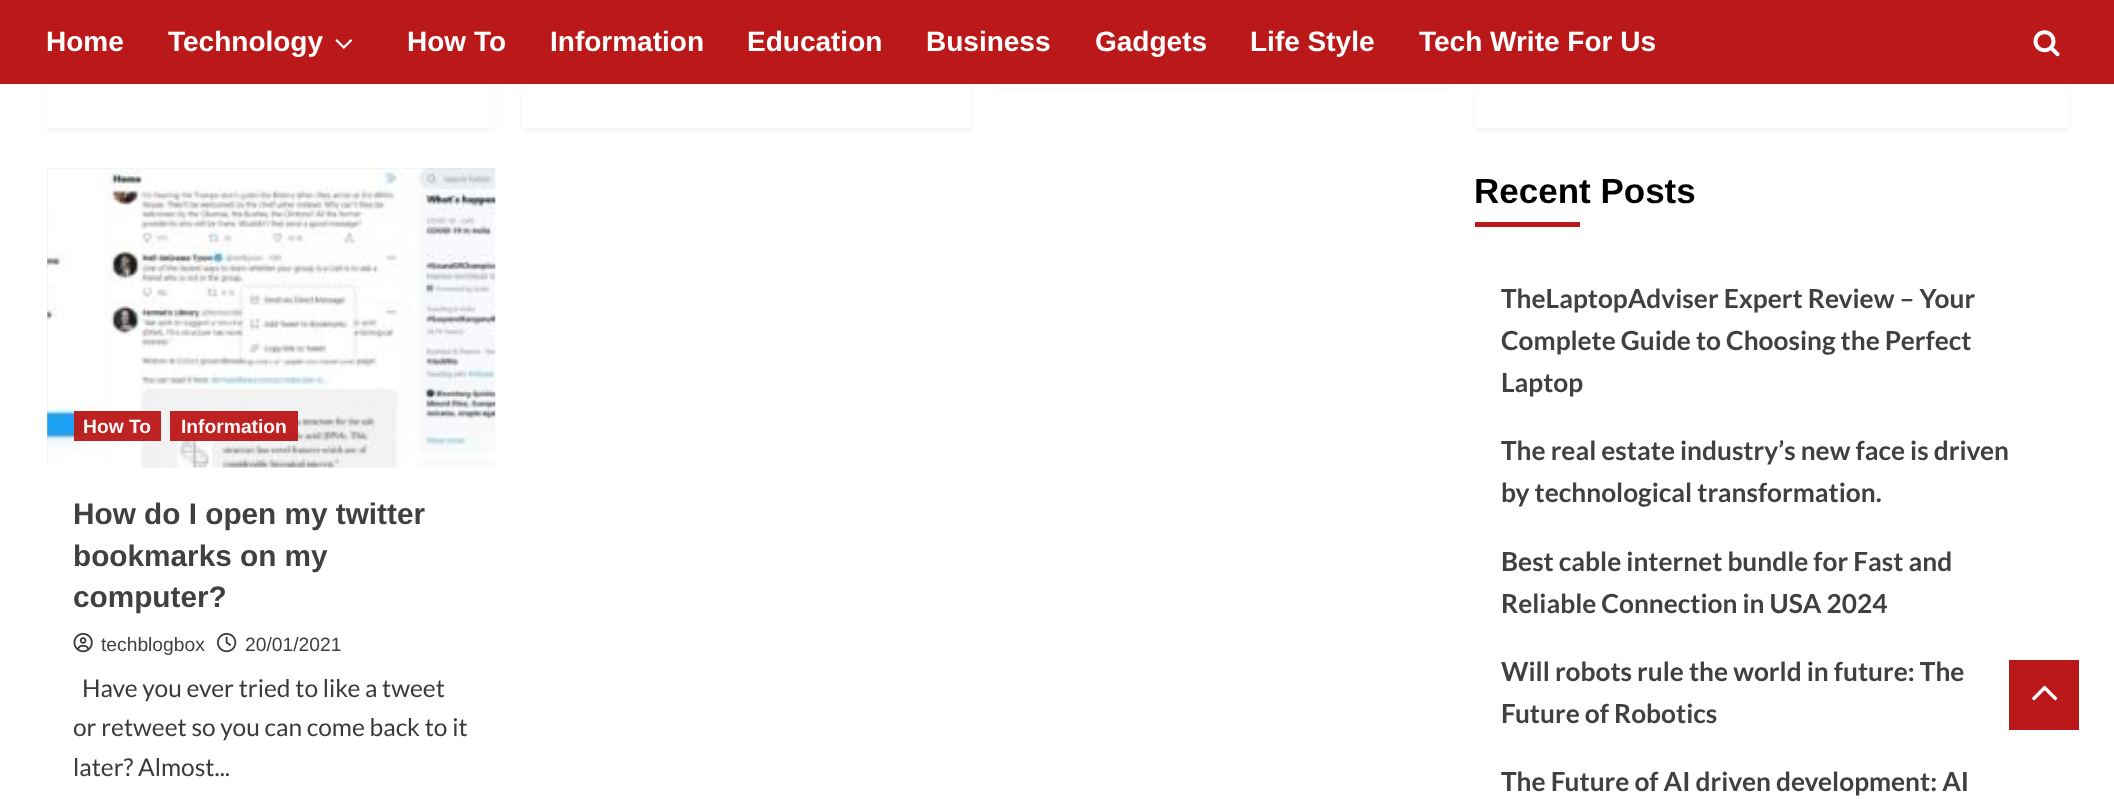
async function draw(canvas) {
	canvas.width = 2114;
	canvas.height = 799;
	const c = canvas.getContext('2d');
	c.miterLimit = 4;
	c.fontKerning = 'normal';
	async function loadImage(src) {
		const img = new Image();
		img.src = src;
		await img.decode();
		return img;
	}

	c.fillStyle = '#fff';
	c.fillRect(0, 0, 2114, 799);
	c.fillStyle = '#0000000d';
	c.filter = 'blur(2px)';
	c.beginPath();
	c.rect(47, -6, 448, 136);
	c.fill();
	c.filter = 'none';
	c.filter = 'blur(2px)';
	c.beginPath();
	c.rect(522, -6, 449, 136);
	c.fill();
	c.filter = 'none';
	c.filter = 'blur(2px)';
	c.beginPath();
	c.rect(998, -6, 449, 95);
	c.fill();
	c.filter = 'none';
	c.filter = 'blur(2px)';
	c.beginPath();
	c.rect(1475, -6, 594, 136);
	c.fill();
	c.filter = 'none';
	c.fillStyle = '#bb1919';
	c.fillRect(0, 0, 2114, 84);
	c.font = 'bold 28px Liberation Sans';
	c.fillStyle = '#fff';
	c.fillText('Home', 46, 51);
	c.fillText('Technology', 168, 51);
	c.drawImage(await loadImage('img1.png'), 335, 39, 18, 10);
	for (const [text, x, y] of [
		['How To', 407, 51],
		['Information', 550, 51],
		['Education', 747, 51],
		['Business', 926, 51],
		['Gadgets', 1095, 51],
		['Life Style', 1250, 51],
		['Tech Write For Us', 1419, 51],
	]) {
		c.fillText(text, x, y);
	}
	c.drawImage(await loadImage('img2.png'), 2033, 30, 27, 27);
	for (const [x, y, w, h, color] of [
		[47, 84, 448, 44, '#fff'],
		[522, 84, 449, 44, '#fff'],
		[998, 84, 449, 4, '#fff'],
		[47, 168, 448, 299, '#d8d8d8'],
	]) {
		c.fillStyle = color;
		c.fillRect(x, y, w, h);
	}
	c.drawImage(await loadImage('img3.png'), 47, 168, 449, 300);
	c.fillStyle = '#bb1919f5';
	c.fillRect(74, 411, 87, 30);
	c.font = 'bold 19.25px Liberation Sans';
	c.fillStyle = '#fcf6f6';
	c.fillText('How To', 83, 433);
	c.fillStyle = '#bb1919f5';
	c.fillRect(170, 411, 128, 30);
	c.fillStyle = '#fcf6f6';
	c.fillText('Information', 181, 433);
	c.font = 'bold 29.75px Liberation Sans';
	c.fillStyle = '#404040';
	for (const [text, x, y] of [
		['How do I open my twitter', 73, 524],
		['bookmarks on my', 73, 566],
		['computer?', 73, 607],
	]) {
		c.fillText(text, x, y);
	}
	c.drawImage(await loadImage('img4.png'), 73, 633, 20, 20);
	c.font = '19.25px Liberation Sans';
	c.fillText('techblogbox', 101, 651);
	c.drawImage(await loadImage('img5.png'), 217, 633, 20, 20);
	c.fillText('20/01/2021', 245, 651);
	c.font = '24.5px Lato';
	c.fillStyle = '#3a3a3a';
	for (const [text, x, y] of [
		['Have you ever tried to like a tweet', 82, 697],
		['or retweet so you can come back to it', 73, 736],
		['later? Almost...', 73, 776],
	]) {
		c.fillText(text, x, y);
	}
	c.fillStyle = '#fff';
	c.fillRect(1475, 84, 594, 44);
	c.font = 'bold 35px Liberation Sans';
	c.fillStyle = '#000';
	c.fillText('Recent Posts', 1474, 203);
	c.fillStyle = '#bb1919';
	c.fillRect(1475, 222, 105, 5);
	c.font = 'bold 26.25px Lato';
	c.fillStyle = '#404040';
	for (const [text, x, y] of [
		['TheLaptopAdviser Expert Review – Your', 1501, 308],
		['Complete Guide to Choosing the Perfect', 1501, 350],
		['Laptop', 1501, 392],
		['The real estate industry’s new face is driven', 1501, 460],
		['by technological transformation.', 1501, 502],
		['Best cable internet bundle for Fast and', 1501, 571],
		['Reliable Connection in USA 2024', 1501, 613],
		['Will robots rule the world in future: The', 1501, 681],
		['Future of Robotics', 1501, 723],
		['The Future of AI driven development: AI', 1501, 791],
	]) {
		c.fillText(text, x, y);
	}
	c.fillStyle = '#bb1919';
	c.fillRect(2009, 660, 70, 70);
	c.drawImage(await loadImage('img6.png'), 2032, 685, 26, 16);
}

draw(document.querySelector('canvas'));
